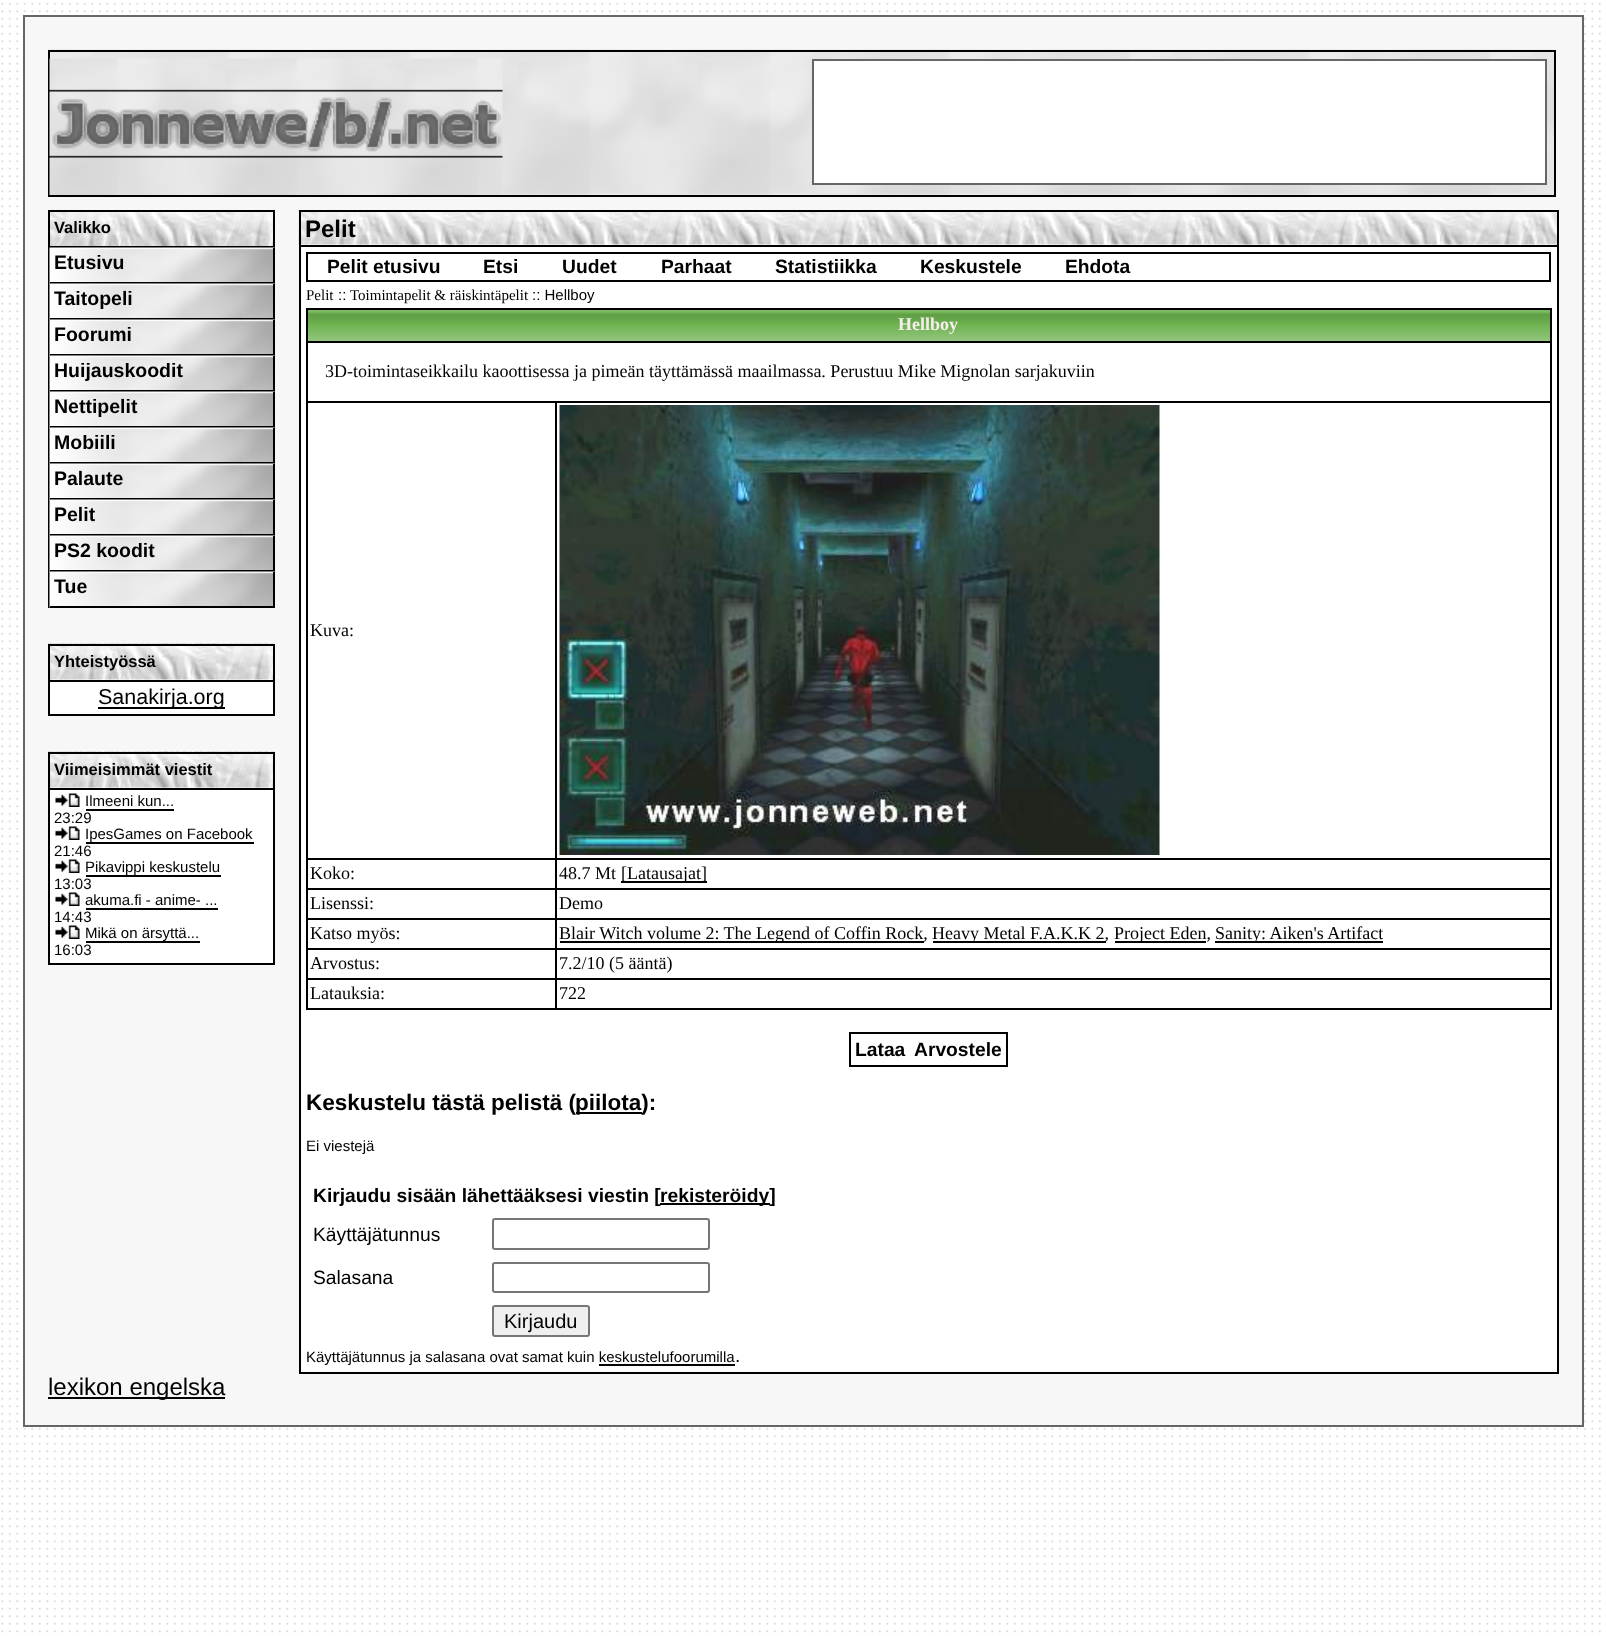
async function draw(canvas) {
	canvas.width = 1606;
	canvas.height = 1636;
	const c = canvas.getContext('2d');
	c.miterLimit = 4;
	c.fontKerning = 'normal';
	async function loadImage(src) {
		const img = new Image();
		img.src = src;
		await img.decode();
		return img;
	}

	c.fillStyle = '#fff';
	c.fillRect(0, 0, 1606, 1636);
	c.drawImage(await loadImage('img1.png'), 1, 1412, 1600, 221);
	c.drawImage(await loadImage('img2.png'), 1, 2, 1600, 1406);
	c.fillStyle = '#f7f7f7';
	c.beginPath();
	c.rect(24, 16, 1559, 1410);
	c.fill();
	c.strokeStyle = '#666';
	c.lineWidth = 2;
	c.stroke();
	c.drawImage(await loadImage('img3.png'), 48, 49, 1508, 146);
	c.strokeStyle = '#000';
	c.strokeRect(49, 51, 1506, 145);
	c.drawImage(await loadImage('img4.png'), 49, 58, 454, 137);
	c.fillStyle = '#fff';
	c.beginPath();
	c.rect(813, 60, 733, 124);
	c.fill();
	c.strokeStyle = '#666';
	c.stroke();
	c.drawImage(await loadImage('img5.png'), 50, 212, 223, 34);
	for (const [x, y, w, h, color] of [
		[48, 210, 227, 2, '#000'],
		[273, 210, 2, 36, '#000'],
		[48, 210, 2, 36, '#000'],
	]) {
		c.fillStyle = color;
		c.fillRect(x, y, w, h);
	}
	c.font = 'bold 16.5px Liberation Sans';
	c.fillText('Valikko', 54, 233);
	c.fillRect(48, 246, 227, 2);
	c.fillRect(48, 246, 2, 362);
	c.drawImage(await loadImage('img6.png'), 49, 247, 226, 37);
	c.fillRect(273, 248, 2, 36);
	c.fillRect(50, 282, 225, 2);
	c.font = 'bold 19.5px Liberation Sans';
	c.fillText('Etusivu', 54, 269);
	c.drawImage(await loadImage('img7.png'), 49, 283, 226, 37);
	c.fillRect(273, 284, 2, 36);
	c.fillRect(50, 318, 225, 2);
	c.fillText('Taitopeli', 54, 305);
	c.drawImage(await loadImage('img7.png'), 49, 319, 226, 37);
	c.fillRect(273, 320, 2, 36);
	c.fillRect(50, 354, 225, 2);
	c.fillText('Foorumi', 54, 341);
	c.drawImage(await loadImage('img7.png'), 49, 355, 226, 37);
	c.fillRect(273, 356, 2, 36);
	c.fillRect(50, 390, 225, 2);
	c.fillText('Huijauskoodit', 54, 377);
	c.drawImage(await loadImage('img7.png'), 49, 391, 226, 37);
	c.fillRect(273, 392, 2, 36);
	c.fillRect(50, 426, 225, 2);
	c.fillText('Nettipelit', 54, 413);
	c.drawImage(await loadImage('img7.png'), 49, 427, 226, 37);
	c.fillRect(273, 428, 2, 36);
	c.fillRect(50, 462, 225, 2);
	c.fillText('Mobiili', 54, 449);
	c.drawImage(await loadImage('img7.png'), 49, 463, 226, 37);
	c.fillRect(273, 464, 2, 36);
	c.fillRect(50, 498, 225, 2);
	c.fillText('Palaute', 54, 485);
	c.drawImage(await loadImage('img7.png'), 49, 499, 226, 37);
	c.fillRect(273, 500, 2, 36);
	c.fillRect(50, 534, 225, 2);
	c.fillText('Pelit', 54, 521);
	c.drawImage(await loadImage('img7.png'), 49, 535, 226, 37);
	c.fillRect(273, 536, 2, 36);
	c.fillRect(50, 570, 225, 2);
	c.fillText('PS2 koodit', 54, 557);
	c.drawImage(await loadImage('img7.png'), 49, 571, 226, 37);
	c.fillRect(273, 572, 2, 36);
	c.fillRect(50, 606, 225, 2);
	c.fillText('Tue', 54, 593);
	c.fillStyle = '#fff';
	c.fillRect(50, 679, 223, 1);
	c.drawImage(await loadImage('img8.png'), 48, 643, 227, 37);
	for (const [x, y, w, h, color] of [
		[48, 644, 227, 2, '#000'],
		[273, 644, 2, 36, '#000'],
		[48, 644, 2, 36, '#000'],
	]) {
		c.fillStyle = color;
		c.fillRect(x, y, w, h);
	}
	c.font = 'bold 16.5px Liberation Sans';
	c.fillText('Yhteistyössä', 54, 667);
	c.fillStyle = '#fff';
	c.beginPath();
	c.rect(49, 681, 225, 34);
	c.fill();
	c.strokeStyle = '#000';
	c.stroke();
	c.fillStyle = '#000';
	c.fillRect(98, 707, 127, 2);
	c.font = '21.5px Liberation Sans';
	c.fillText('Sanakirja.org', 98, 704);
	c.fillStyle = '#fff';
	c.fillRect(50, 787, 223, 1);
	c.drawImage(await loadImage('img8.png'), 48, 751, 227, 37);
	for (const [x, y, w, h, color] of [
		[48, 752, 227, 2, '#000'],
		[273, 752, 2, 36, '#000'],
		[48, 752, 2, 36, '#000'],
	]) {
		c.fillStyle = color;
		c.fillRect(x, y, w, h);
	}
	c.font = 'bold 16.5px Liberation Sans';
	c.fillText('Viimeisimmät viestit', 54, 775);
	c.fillStyle = '#fff';
	c.beginPath();
	c.rect(49, 789, 225, 175);
	c.fill();
	c.stroke();
	c.drawImage(await loadImage('img9.png'), 55, 793, 25, 14);
	c.font = '15px Liberation Sans';
	c.fillStyle = '#000';
	c.fillText('Ilmeeni kun...', 85, 806);
	c.fillRect(86, 809, 88, 2);
	c.fillText('23:29', 54, 823);
	c.drawImage(await loadImage('img9.png'), 55, 826, 25, 14);
	c.fillRect(86, 842, 168, 2);
	c.fillText('IpesGames on Facebook', 85, 839);
	c.fillText('21:46', 54, 856);
	c.drawImage(await loadImage('img9.png'), 55, 859, 25, 14);
	c.fillRect(86, 875, 135, 2);
	c.fillText('Pikavippi keskustelu', 85, 872);
	c.fillText('13:03', 54, 889);
	c.drawImage(await loadImage('img9.png'), 55, 892, 25, 14);
	c.fillText('akuma.fi - anime- ...', 85, 905);
	c.fillRect(86, 908, 132, 2);
	c.fillText('14:43', 54, 922);
	c.drawImage(await loadImage('img9.png'), 55, 925, 25, 14);
	c.fillRect(86, 941, 114, 2);
	c.fillText('Mikä on ärsyttä...', 85, 938);
	c.fillText('16:03', 54, 955);
	c.fillStyle = '#fff';
	c.fillRect(301, 244, 1256, 1);
	c.drawImage(await loadImage('img10.png'), 298, 210, 1259, 35);
	for (const [x, y, w, h, color] of [
		[299, 210, 1260, 2, '#000'],
		[1557, 210, 2, 35, '#000'],
		[299, 210, 2, 35, '#000'],
	]) {
		c.fillStyle = color;
		c.fillRect(x, y, w, h);
	}
	c.font = 'bold 24px Liberation Sans';
	c.fillText('Pelit', 305, 237);
	c.fillStyle = '#fff';
	c.beginPath();
	c.rect(300, 246, 1258, 1127);
	c.fill();
	c.stroke();
	c.strokeRect(307, 253, 1243, 28);
	c.font = 'bold 19.25px Liberation Sans';
	c.fillStyle = '#000';
	for (const [text, x, y] of [
		['Pelit etusivu', 327, 273],
		['Etsi', 483, 273],
		['Uudet', 562, 273],
		['Parhaat', 661, 273],
		['Statistiikka', 775, 273],
		['Keskustele', 920, 273],
		['Ehdota', 1065, 273],
	]) {
		c.fillText(text, x, y);
	}
	c.font = '15px Liberation Serif';
	c.fillText('Pelit', 306, 300);
	c.font = '15px Liberation Sans';
	c.fillText('::', 338, 300);
	c.font = '15px Liberation Serif';
	c.fillText('Toimintapelit & räiskintäpelit', 350, 300);
	c.font = '15px Liberation Sans';
	c.fillText(':: Hellboy', 532, 300);
	for (const [x, y, w, h, color] of [
		[306, 308, 1245, 2, '#000'],
		[1550, 308, 2, 702, '#000'],
		[306, 1008, 1245, 2, '#000'],
		[306, 308, 2, 702, '#000'],
	]) {
		c.fillStyle = color;
		c.fillRect(x, y, w, h);
	}
	c.drawImage(await loadImage('img11.png'), 308, 310, 1242, 31);
	c.font = 'bold 18px Liberation Serif';
	c.fillStyle = '#f6eeee';
	c.fillText('Hellboy', 898, 330);
	c.fillStyle = '#000';
	c.fillRect(306, 341, 1245, 2);
	c.font = '18px Liberation Serif';
	c.fillText('3D-toimintaseikkailu kaoottisessa ja pimeän täyttämässä maailmassa. Perustuu Mike Mignolan sarjakuviin', 325, 377);
	for (const [x, y, w, h, color] of [
		[555, 401, 996, 2, '#000'],
		[555, 858, 996, 2, '#000'],
		[555, 888, 996, 2, '#000'],
		[555, 918, 996, 2, '#000'],
		[306, 948, 1245, 2, '#000'],
		[306, 978, 1245, 2, '#000'],
		[555, 948, 2, 62, '#000'],
		[555, 918, 2, 32, '#000'],
		[306, 918, 251, 2, '#000'],
		[555, 888, 2, 32, '#000'],
		[306, 888, 251, 2, '#000'],
		[555, 858, 2, 32, '#000'],
		[306, 858, 251, 2, '#000'],
		[555, 401, 2, 459, '#000'],
		[306, 401, 251, 2, '#000'],
	]) {
		c.fillStyle = color;
		c.fillRect(x, y, w, h);
	}
	c.fillText('Kuva:', 310, 636);
	c.drawImage(await loadImage('img12.png'), 559, 405, 601, 450);
	c.fillText('Koko:', 310, 879);
	c.fillText('48.7 Mt', 559, 879);
	c.fillRect(621, 881, 86, 2);
	for (const [text, x, y] of [
		['[Latausajat]', 621, 879],
		['Lisenssi:', 310, 909],
		['Demo', 559, 909],
		['Katso myös:', 310, 939],
	]) {
		c.fillText(text, x, y);
	}
	c.fillRect(560, 941, 364, 2);
	c.fillText('Blair Witch volume 2: The Legend of Coffin Rock,', 559, 939);
	c.fillRect(933, 941, 173, 2);
	c.fillText('Heavy Metal F.A.K.K 2,', 932, 939);
	c.fillRect(1115, 941, 91, 2);
	c.fillText('Project Eden,', 1114, 939);
	c.fillRect(1215, 941, 168, 2);
	for (const [text, x, y] of [
		['Sanity: Aiken\'s Artifact', 1215, 939],
		['Arvostus:', 310, 969],
		['7.2/10 (5 ääntä)', 559, 969],
		['Latauksia:', 310, 999],
		['722', 559, 999],
	]) {
		c.fillText(text, x, y);
	}
	c.strokeRect(850, 1033, 157, 33);
	c.font = 'bold 19.25px Liberation Sans';
	c.fillText('Lataa', 855, 1056);
	c.fillText('Arvostele', 914, 1056);
	c.font = 'bold 22.5px Liberation Sans';
	c.fillText('Keskustelu tästä pelistä (', 306, 1110);
	c.fillRect(576, 1112, 66, 2);
	c.fillText('piilota):', 575, 1110);
	c.font = '15px Liberation Sans';
	c.fillText('Ei viestejä', 306, 1151);
	c.font = 'bold 19.25px Liberation Sans';
	c.fillText('Kirjaudu sisään lähettääksesi viestin [', 313, 1202);
	c.fillRect(660, 1203, 110, 2);
	c.fillText('rekisteröidy]', 660, 1202);
	c.font = '19.25px Liberation Sans';
	c.fillText('Käyttäjätunnus', 313, 1241);
	c.beginPath();
	c.roundRect(493, 1219, 216, 30, 2);
	c.strokeStyle = '#767676';
	c.stroke();
	c.fillText('Salasana', 313, 1284);
	c.beginPath();
	c.roundRect(493, 1263, 216, 29, 2);
	c.stroke();
	c.fillStyle = '#efefef';
	c.beginPath();
	c.roundRect(493, 1306, 96, 30, 2);
	c.fill();
	c.stroke();
	c.font = '20px Liberation Sans';
	c.fillStyle = '#000';
	c.fillText('Kirjaudu', 504, 1328);
	c.font = '15px Liberation Sans';
	c.fillText('Käyttäjätunnus ja salasana ovat samat kuin keskustelufoorumilla', 306, 1362);
	c.fillRect(599, 1364, 136, 2);
	c.font = '19.25px Liberation Sans';
	c.fillText('.', 735, 1362);
	c.fillRect(48, 1397, 177, 2);
	c.font = '24px Liberation Sans';
	c.fillText('lexikon engelska', 48, 1395);
}

draw(document.querySelector('canvas'));
